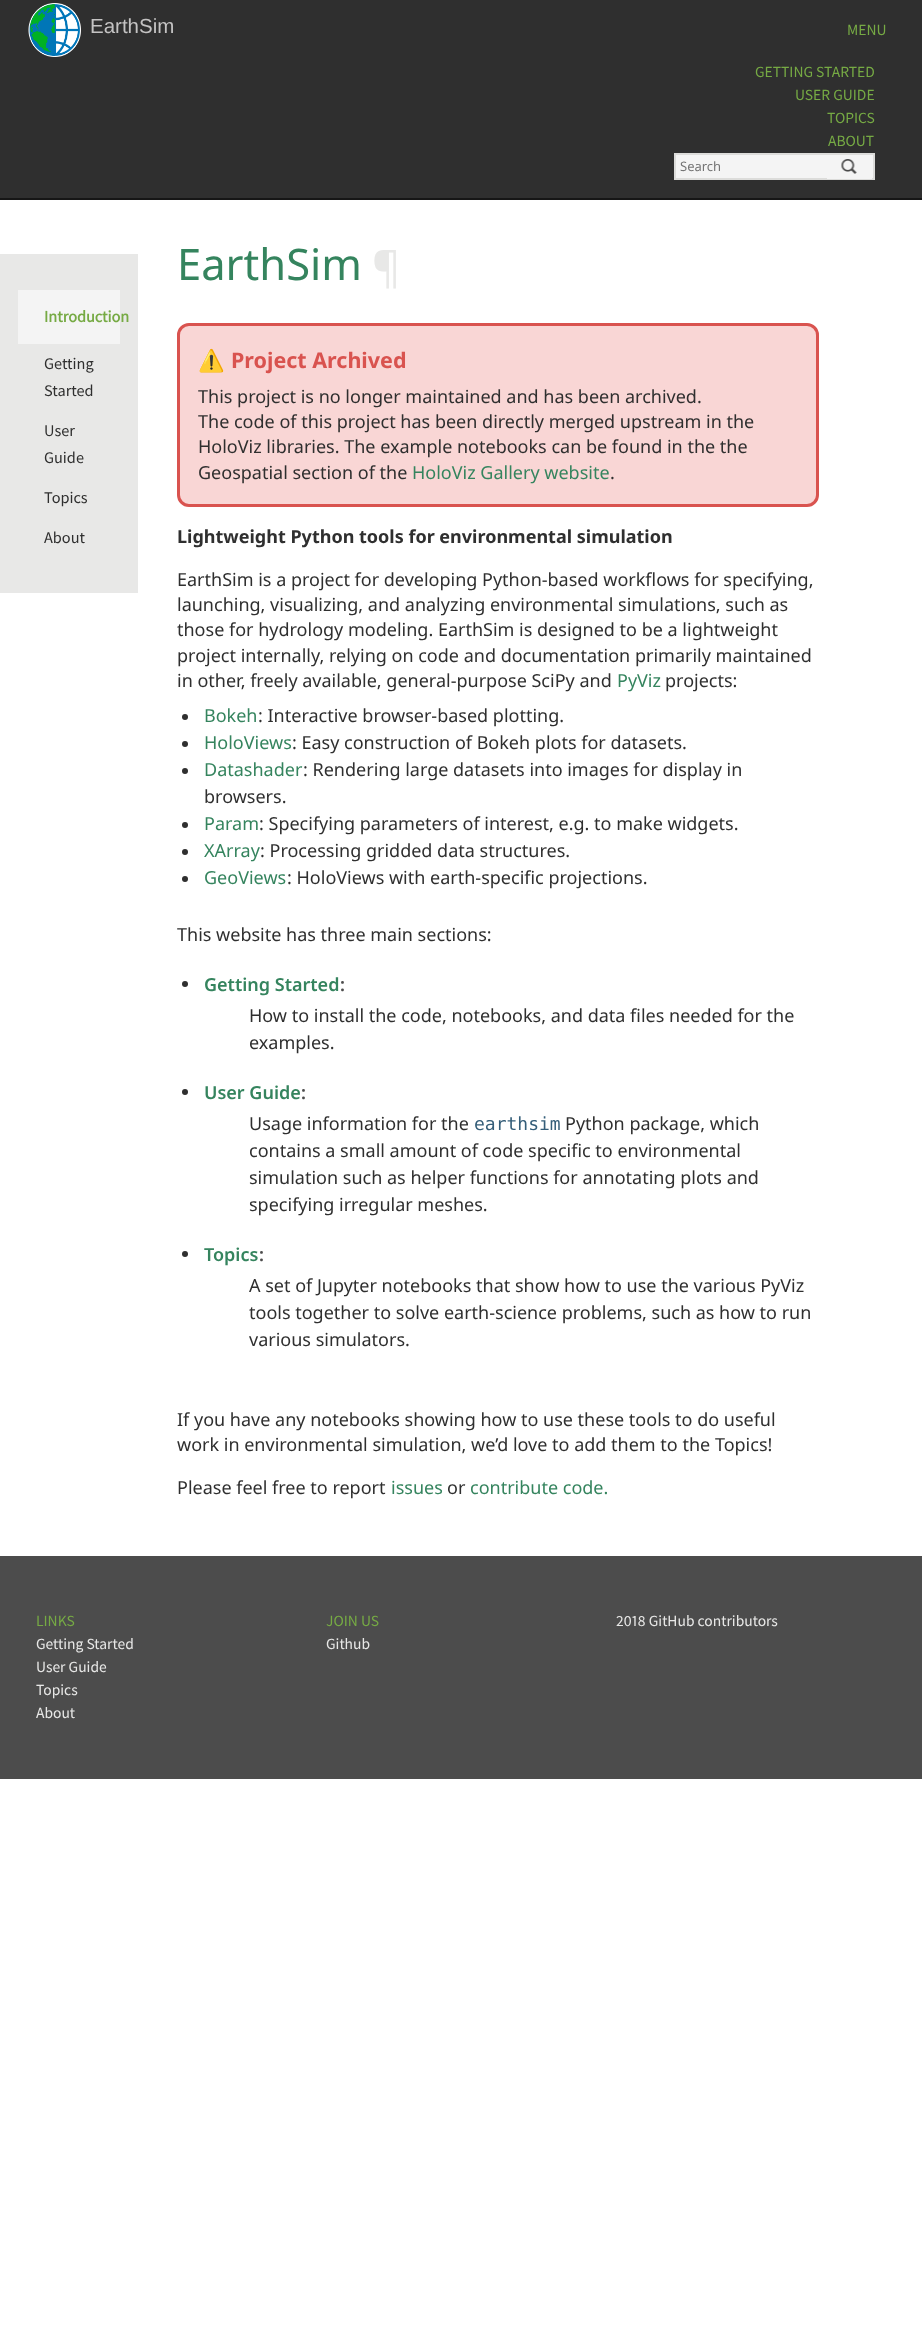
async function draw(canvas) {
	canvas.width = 922;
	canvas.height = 2342;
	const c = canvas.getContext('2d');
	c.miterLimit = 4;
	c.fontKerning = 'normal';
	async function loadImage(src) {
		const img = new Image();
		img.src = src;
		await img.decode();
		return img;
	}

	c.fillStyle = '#fff';
	c.fillRect(0, 0, 922, 2342);
	c.fillStyle = '#2f2f2f';
	c.fillRect(0, 0, 922, 198);
	c.fillStyle = '#161616';
	c.fillRect(0, 198, 922, 2);
	c.drawImage(await loadImage('img1.png'), 28, 3, 53, 54);
	c.font = '20.5px Liberation Sans';
	c.fillStyle = '#c4c3c3';
	c.fillText('EarthSim', 90, 33);
	c.font = '15.5px Source Sans Pro';
	c.fillStyle = '#76aa44';
	for (const [text, x, y] of [
		['MENU', 847, 35],
		['GETTING STARTED', 755, 77],
		['USER GUIDE', 795, 100],
		['TOPICS', 827, 123],
		['ABOUT', 828, 146],
	]) {
		c.fillText(text, x, y);
	}
	c.fillStyle = '#f4f4f4';
	c.beginPath();
	c.rect(675, 154, 199, 25);
	c.fill();
	c.strokeStyle = '#dcdcda';
	c.lineWidth = 2;
	c.stroke();
	c.font = '13px Noto Sans';
	c.fillStyle = '#757575';
	c.fillText('Search', 680, 171);
	c.fillStyle = '#f4f4f4';
	c.fillRect(827, 178, 45, 1);
	c.drawImage(await loadImage('img2.png'), 841, 159, 16, 15);
	c.fillStyle = '#e8e8e7';
	c.fillRect(0, 254, 138, 339);
	c.fillStyle = '#f4f4f4';
	c.fillRect(18, 290, 102, 54);
	c.font = 'bold 16.25px Source Sans Pro';
	c.fillStyle = '#76aa44';
	c.fillText('Introduction', 44, 322);
	c.font = '16.25px Source Sans Pro';
	c.fillStyle = '#2f2f2f';
	for (const [text, x, y] of [
		['Getting', 44, 369],
		['Started', 44, 396],
		['User', 44, 436],
		['Guide', 44, 463],
		['Topics', 44, 503],
		['About', 44, 543],
	]) {
		c.fillText(text, x, y);
	}
	c.font = '43.5px Noto Sans';
	c.fillStyle = '#35845e';
	c.fillText('EarthSim', 177, 280);
	c.fillStyle = '#e8e8e7';
	c.fillText('¶', 372, 283);
	c.fillStyle = '#f9d6d5';
	c.beginPath();
	c.roundRect(178.5, 324.5, 639, 181, 10.5);
	c.fill();
	c.strokeStyle = '#d9534f';
	c.lineWidth = 3;
	c.stroke();
	c.font = 'bold 21.5px Noto Color Emoji';
	c.fillStyle = '#d9534f';
	c.fillText('⚠️', 198, 368);
	c.font = 'bold 21.5px Noto Sans';
	c.fillText('Project Archived', 231, 368);
	c.font = '18px Noto Sans';
	c.fillStyle = '#2f2f2f';
	for (const [text, x, y] of [
		['This project is no longer maintained and has been archived.', 198, 403],
		['The code of this project has been directly merged upstream in the', 198, 428],
		['HoloViz libraries. The example notebooks can be found in the the', 198, 453],
		['Geospatial section of the', 198, 479],
	]) {
		c.fillText(text, x, y);
	}
	c.fillStyle = '#35845e';
	c.fillText('HoloViz Gallery website', 412, 479);
	c.fillStyle = '#2f2f2f';
	c.fillText('.', 610, 479);
	c.font = 'bold 18px Noto Sans';
	c.fillText('Lightweight Python tools for environmental simulation', 177, 543);
	c.font = '18px Noto Sans';
	for (const [text, x, y] of [
		['EarthSim is a project for developing Python-based workflows for specifying,', 177, 586],
		['launching, visualizing, and analyzing environmental simulations, such as', 177, 611],
		['those for hydrology modeling. EarthSim is designed to be a lightweight', 177, 636],
		['project internally, relying on code and documentation primarily maintained', 177, 662],
		['in other, freely available, general-purpose SciPy and', 177, 687],
	]) {
		c.fillText(text, x, y);
	}
	c.fillStyle = '#35845e';
	c.fillText('PyViz', 617, 687);
	c.fillStyle = '#2f2f2f';
	c.fillText('projects:', 665, 687);
	c.beginPath();
	c.arc(185, 717, 3, 0, 2 * Math.PI);
	c.fill();
	c.fillStyle = '#35845e';
	c.fillText('Bokeh', 204, 722);
	c.fillStyle = '#2f2f2f';
	c.fillText(': Interactive browser-based plotting.', 258, 722);
	c.beginPath();
	c.arc(185, 744, 3, 0, 2 * Math.PI);
	c.fill();
	c.fillStyle = '#35845e';
	c.fillText('HoloViews', 204, 749);
	c.fillStyle = '#2f2f2f';
	c.fillText(': Easy construction of Bokeh plots for datasets.', 292, 749);
	c.beginPath();
	c.arc(185, 771, 3, 0, 2 * Math.PI);
	c.fill();
	c.fillStyle = '#35845e';
	c.fillText('Datashader', 204, 776);
	c.fillStyle = '#2f2f2f';
	c.fillText(': Rendering large datasets into images for display in', 303, 776);
	c.fillText('browsers.', 204, 803);
	c.beginPath();
	c.arc(185, 825, 3, 0, 2 * Math.PI);
	c.fill();
	c.fillStyle = '#35845e';
	c.fillText('Param', 204, 830);
	c.fillStyle = '#2f2f2f';
	c.fillText(': Specifying parameters of interest, e.g. to make widgets.', 259, 830);
	c.beginPath();
	c.arc(185, 852, 3, 0, 2 * Math.PI);
	c.fill();
	c.fillStyle = '#35845e';
	c.fillText('XArray', 204, 857);
	c.fillStyle = '#2f2f2f';
	c.fillText(': Processing gridded data structures.', 260, 857);
	c.beginPath();
	c.arc(185, 879, 3, 0, 2 * Math.PI);
	c.fill();
	c.fillStyle = '#35845e';
	c.fillText('GeoViews', 204, 884);
	c.fillStyle = '#2f2f2f';
	c.fillText(': HoloViews with earth-specific projections.', 287, 884);
	c.fillText('This website has three main sections:', 177, 941);
	c.beginPath();
	c.arc(185, 984, 3, 0, 2 * Math.PI);
	c.fill();
	c.font = '600 18px Noto Sans';
	c.fillStyle = '#35845e';
	c.fillText('Getting Started', 204, 991);
	c.fillStyle = '#4c4c4c';
	c.fillText(':', 340, 991);
	c.font = '18px Noto Sans';
	c.fillStyle = '#2f2f2f';
	c.fillText('How to install the code, notebooks, and data files needed for the', 249, 1022);
	c.fillText('examples.', 249, 1049);
	c.beginPath();
	c.arc(185, 1092, 3, 0, 2 * Math.PI);
	c.fill();
	c.font = '600 18px Noto Sans';
	c.fillStyle = '#35845e';
	c.fillText('User Guide', 204, 1099);
	c.fillStyle = '#4c4c4c';
	c.fillText(':', 301, 1099);
	c.font = '18px Noto Sans';
	c.fillStyle = '#2f2f2f';
	c.fillText('Usage information for the', 249, 1130);
	c.font = '18px DejaVu Sans Mono';
	c.fillStyle = '#355e79';
	c.fillText('earthsim', 474, 1130);
	c.font = '18px Noto Sans';
	c.fillStyle = '#2f2f2f';
	for (const [text, x, y] of [
		['Python package, which', 565, 1130],
		['contains a small amount of code specific to environmental', 249, 1157],
		['simulation such as helper functions for annotating plots and', 249, 1184],
		['specifying irregular meshes.', 249, 1211],
	]) {
		c.fillText(text, x, y);
	}
	c.beginPath();
	c.arc(185, 1254, 3, 0, 2 * Math.PI);
	c.fill();
	c.font = '600 18px Noto Sans';
	c.fillStyle = '#35845e';
	c.fillText('Topics', 204, 1261);
	c.fillStyle = '#4c4c4c';
	c.fillText(':', 259, 1261);
	c.font = '18px Noto Sans';
	c.fillStyle = '#2f2f2f';
	for (const [text, x, y] of [
		['A set of Jupyter notebooks that show how to use the various PyViz', 249, 1292],
		['tools together to solve earth-science problems, such as how to run', 249, 1319],
		['various simulators.', 249, 1346],
		['If you have any notebooks showing how to use these tools to do useful', 177, 1426],
		['work in environmental simulation, we’d love to add them to the Topics!', 177, 1451],
		['Please feel free to report', 177, 1494],
	]) {
		c.fillText(text, x, y);
	}
	c.fillStyle = '#35845e';
	c.fillText('issues', 391, 1494);
	c.fillStyle = '#2f2f2f';
	c.fillText('or', 447, 1494);
	c.fillStyle = '#35845e';
	c.fillText('contribute code.', 470, 1494);
	c.fillStyle = '#4c4c4c';
	c.fillRect(0, 1556, 922, 223);
	c.font = '15.5px Source Sans Pro';
	c.fillStyle = '#76aa44';
	c.fillText('LINKS', 36, 1626);
	c.fillStyle = '#e8e8e7';
	for (const [text, x, y] of [
		['Getting Started', 36, 1649],
		['User Guide', 36, 1672],
		['Topics', 36, 1695],
		['About', 36, 1718],
	]) {
		c.fillText(text, x, y);
	}
	c.fillStyle = '#76aa44';
	c.fillText('JOIN US', 326, 1626);
	c.fillStyle = '#e8e8e7';
	c.fillText('Github', 326, 1649);
	c.font = '15.5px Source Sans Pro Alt';
	c.fillText('2018 GitHub contributors', 616, 1626);
}

draw(document.querySelector('canvas'));
